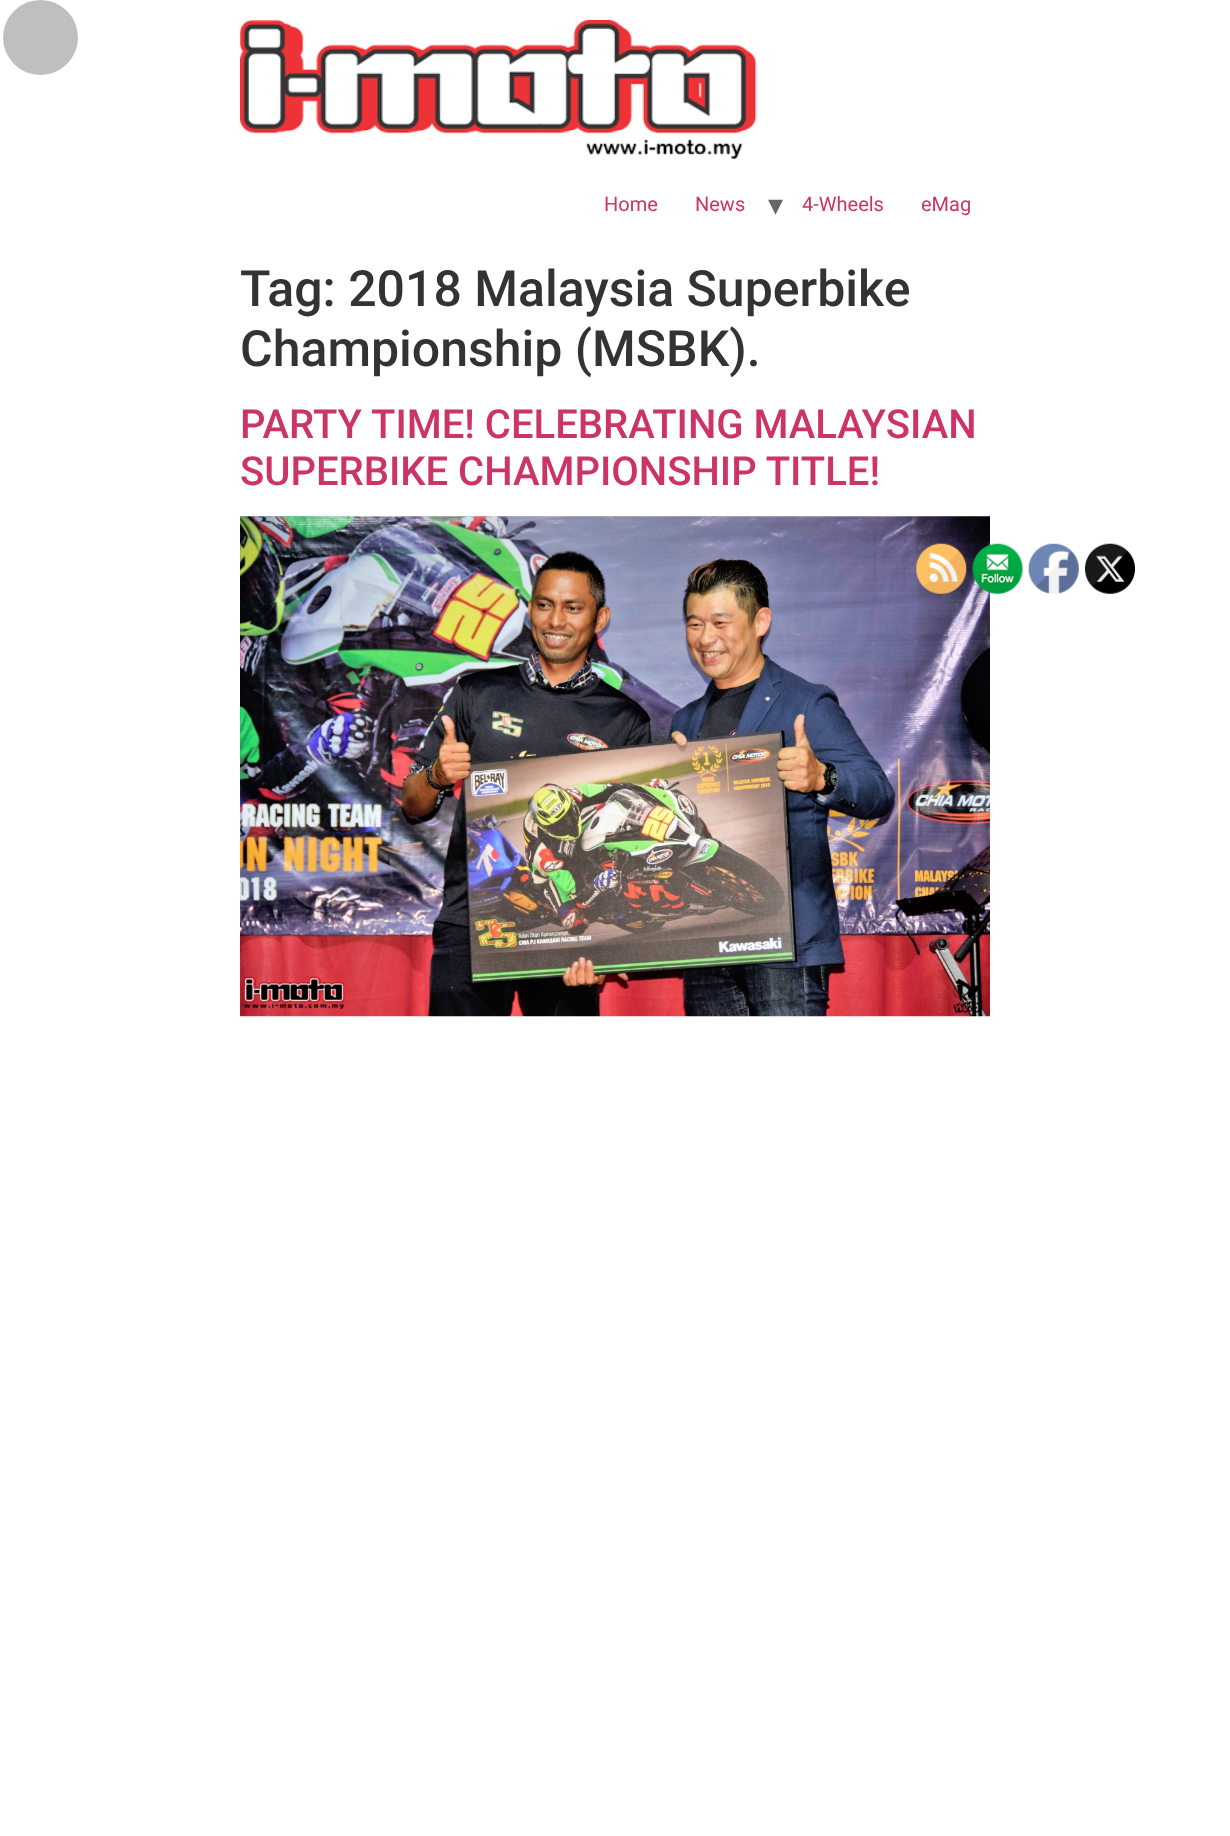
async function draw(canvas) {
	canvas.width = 1230;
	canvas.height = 1836;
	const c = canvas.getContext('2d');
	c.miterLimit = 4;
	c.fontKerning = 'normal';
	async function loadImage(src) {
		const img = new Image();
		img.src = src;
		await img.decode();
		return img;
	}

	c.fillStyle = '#fff';
	c.fillRect(0, 0, 1230, 1836);
	c.fillStyle = '#bfbfbf';
	c.beginPath();
	c.arc(40.5, 37.5, 37.5, 0, 2 * Math.PI);
	c.fill();
	c.drawImage(await loadImage('img1.png'), 240, 20, 517, 139);
	c.font = '20px Roboto';
	c.fillStyle = '#c36';
	c.fillText('Home', 604, 211);
	c.fillText('News', 695, 211);
	c.font = '30px DejaVu Sans';
	c.fillStyle = '#666';
	c.fillText('▾', 768, 215);
	c.font = '20px Roboto';
	c.fillStyle = '#c36';
	c.fillText('4-Wheels', 802, 211);
	c.fillText('eMag', 921, 211);
	c.font = '500 50px Roboto';
	c.fillStyle = '#333';
	c.fillText('Tag: 2018 Malaysia Superbike', 240, 306);
	c.fillText('Championship (MSBK).', 240, 366);
	c.font = '500 40px Roboto';
	c.fillStyle = '#c36';
	c.fillText('PARTY TIME! CELEBRATING MALAYSIAN', 240, 438);
	c.fillText('SUPERBIKE CHAMPIONSHIP TITLE!', 240, 485);
	c.drawImage(await loadImage('img2.png'), 240, 516, 750, 501);
	c.drawImage(await loadImage('img3.png'), 916, 543, 51, 51);
	c.drawImage(await loadImage('img4.png'), 972, 543, 51, 51);
	c.drawImage(await loadImage('img5.png'), 1028, 543, 51, 51);
	c.drawImage(await loadImage('img6.png'), 1085, 543, 50, 51);
}

draw(document.querySelector('canvas'));
